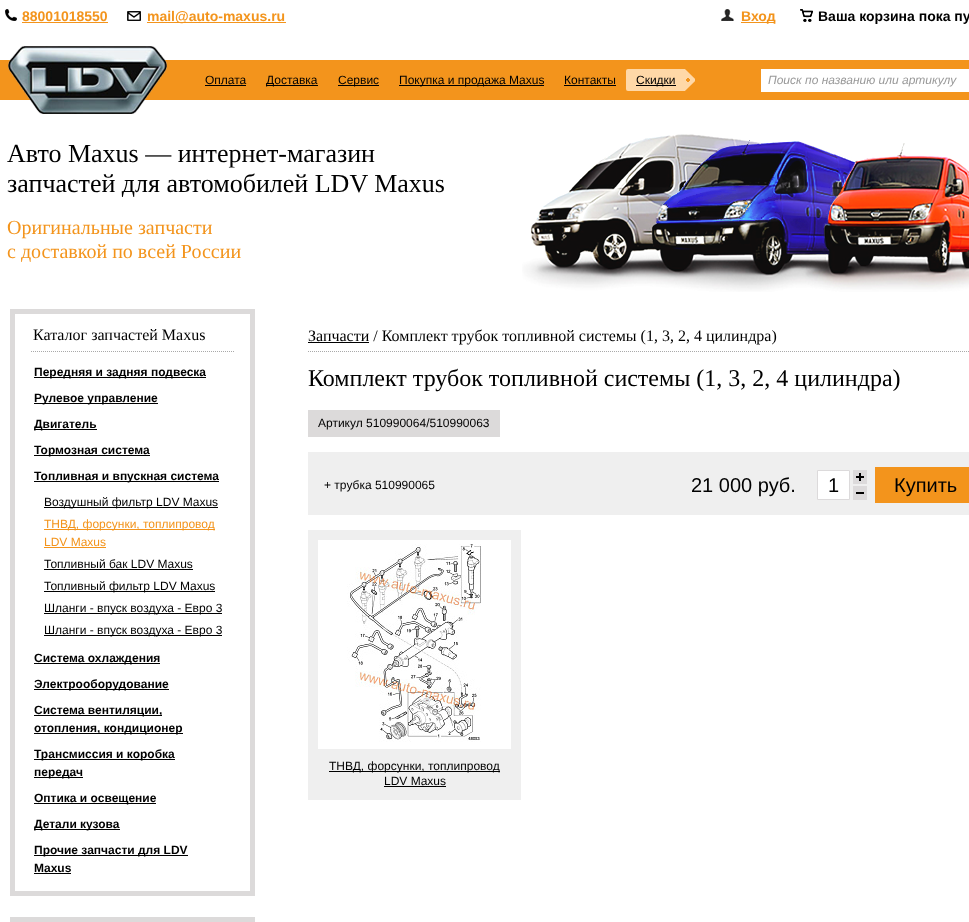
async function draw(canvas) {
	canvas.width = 969;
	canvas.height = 922;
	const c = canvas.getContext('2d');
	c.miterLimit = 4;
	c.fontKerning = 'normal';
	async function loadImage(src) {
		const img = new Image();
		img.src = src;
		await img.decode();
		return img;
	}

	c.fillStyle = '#fff';
	c.fillRect(0, 0, 969, 922);
	c.drawImage(await loadImage('img1.png'), 5, 9, 12, 12);
	c.font = 'bold 14px Liberation Sans';
	c.fillStyle = '#f3941c';
	c.fillText('88001018550', 22, 21);
	c.fillRect(22, 22, 86, 1);
	c.drawImage(await loadImage('img2.png'), 127, 11, 14, 10);
	c.fillRect(147, 22, 139, 1);
	c.fillText('mail@auto-maxus.ru', 147, 21);
	c.drawImage(await loadImage('img3.png'), 721, 9, 13, 12);
	c.fillRect(741, 22, 34, 1);
	c.fillText('Вход', 741, 21);
	c.drawImage(await loadImage('img4.png'), 800, 9, 13, 13);
	c.fillStyle = '#000';
	c.fillText('Ваша корзина пока пу', 818, 21);
	c.fillStyle = '#f3941c';
	c.fillRect(0, 60, 969, 40);
	c.drawImage(await loadImage('img5.png'), 8, 46, 159, 68);
	c.font = '12px Liberation Sans';
	c.fillStyle = '#000';
	c.fillText('Оплата', 205, 84);
	c.fillRect(205, 85, 41, 1);
	c.fillRect(266, 85, 52, 1);
	c.fillText('Доставка', 266, 84);
	c.fillRect(338, 85, 41, 1);
	c.fillText('Сервис', 338, 84);
	c.fillRect(399, 85, 145, 1);
	c.fillText('Покупка и продажа Maxus', 399, 84);
	c.fillText('Контакты', 564, 84);
	c.fillRect(564, 85, 52, 1);
	c.fillStyle = '#ffd8a7';
	c.beginPath();
	c.roundRect(626, 69, 59, 22, [2, 0, 0, 2]);
	c.fill();
	c.fillStyle = '#000';
	c.fillRect(636, 85, 40, 1);
	c.fillText('Скидки', 636, 84);
	c.drawImage(await loadImage('img6.png'), 685, 69, 10, 22);
	c.fillStyle = '#fff';
	c.fillRect(761, 69, 208, 23);
	c.font = 'italic 12px Liberation Sans';
	c.fillStyle = '#999';
	c.fillText('Поиск по названию или артикулу', 768, 84);
	c.font = '26px Liberation Serif';
	c.fillStyle = '#000';
	c.fillText('Авто Maxus — интернет-магазин', 7, 162);
	c.fillText('запчастей для автомобилей LDV Maxus', 7, 192);
	c.drawImage(await loadImage('img7.png'), 522, 134, 447, 158);
	c.font = '20px Liberation Serif';
	c.fillStyle = '#f3941c';
	c.fillText('Оригинальные запчасти', 7, 234);
	c.fillText('с доставкой по всей России', 7, 258);
	c.strokeStyle = '#dcdada';
	c.lineWidth = 5;
	c.strokeRect(12.5, 311.5, 240, 582);
	c.beginPath();
	c.moveTo(31, 351.5);
	c.lineTo(234, 351.5);
	c.strokeStyle = '#a9a9a9';
	c.lineWidth = 1;
	c.setLineDash([1, 1]);
	c.stroke();
	c.font = '16px Liberation Serif';
	c.fillStyle = '#000';
	c.fillText('Каталог запчастей Maxus', 33, 340);
	c.fillRect(34, 377, 172, 1);
	c.font = 'bold 12px Liberation Sans';
	c.fillText('Передняя и задняя подвеска', 34, 376);
	c.fillRect(34, 403, 124, 1);
	c.fillText('Рулевое управление', 34, 402);
	c.fillRect(34, 429, 63, 1);
	c.fillText('Двигатель', 34, 428);
	c.fillRect(34, 455, 116, 1);
	c.fillText('Тормозная система', 34, 454);
	c.fillRect(34, 481, 185, 1);
	c.fillText('Топливная и впускная система', 34, 480);
	c.fillRect(44, 507, 174, 1);
	c.font = '12px Liberation Sans';
	c.fillText('Воздушный фильтр LDV Maxus', 44, 506);
	c.fillStyle = '#f3941c';
	c.fillRect(44, 529, 171, 1);
	c.fillText('ТНВД, форсунки, топлипровод', 44, 528);
	c.fillText('LDV Maxus', 44, 546);
	c.fillRect(44, 547, 62, 1);
	c.fillStyle = '#000';
	c.fillText('Топливный бак LDV Maxus', 44, 568);
	c.fillRect(44, 569, 149, 1);
	c.fillRect(44, 591, 171, 1);
	c.fillText('Топливный фильтр LDV Maxus', 44, 590);
	c.fillRect(44, 613, 178, 1);
	c.fillText('Шланги - впуск воздуха - Евро 3', 44, 612);
	c.fillRect(44, 635, 178, 1);
	c.fillText('Шланги - впуск воздуха - Евро 3', 44, 634);
	c.fillRect(34, 663, 126, 1);
	c.font = 'bold 12px Liberation Sans';
	c.fillText('Система охлаждения', 34, 662);
	c.fillRect(34, 689, 135, 1);
	c.fillText('Электрооборудование', 34, 688);
	c.fillRect(34, 715, 128, 1);
	c.fillText('Система вентиляции,', 34, 714);
	c.fillRect(34, 733, 149, 1);
	c.fillText('отопления, кондиционер', 34, 732);
	c.fillRect(34, 759, 141, 1);
	c.fillText('Трансмиссия и коробка', 34, 758);
	c.fillRect(34, 777, 49, 1);
	c.fillText('передач', 34, 776);
	c.fillRect(34, 803, 122, 1);
	c.fillText('Оптика и освещение', 34, 802);
	c.fillRect(34, 829, 86, 1);
	c.fillText('Детали кузова', 34, 828);
	c.fillRect(34, 855, 154, 1);
	c.fillText('Прочие запчасти для LDV', 34, 854);
	c.fillText('Maxus', 34, 872);
	c.fillRect(34, 873, 37, 1);
	c.strokeStyle = '#dcdada';
	c.lineWidth = 5;
	c.setLineDash([]);
	c.strokeRect(12.5, 919.5, 240, 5);
	c.beginPath();
	c.moveTo(308, 351.5);
	c.lineTo(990, 351.5);
	c.strokeStyle = '#a9a9a9';
	c.lineWidth = 1;
	c.setLineDash([1, 1]);
	c.stroke();
	c.fillRect(308, 342, 61, 1);
	c.font = '16px Liberation Serif';
	c.fillText('Запчасти / Комплект трубок топливной системы (1, 3, 2, 4 цилиндра)', 308, 341);
	c.font = '24px Liberation Serif';
	c.fillText('Комплект трубок топливной системы (1, 3, 2, 4 цилиндра)', 308, 386);
	c.fillStyle = '#dcdada';
	c.fillRect(308, 410, 192, 27);
	c.font = '12px Liberation Sans';
	c.fillStyle = '#000';
	c.fillText('Артикул 510990064/510990063', 318, 427);
	c.fillStyle = '#efefef';
	c.fillRect(308, 452, 661, 63);
	c.fillStyle = '#000';
	c.fillText('+ трубка 510990065', 324, 489);
	c.font = '20px Liberation Sans';
	c.fillText('21 000 руб.', 691, 492);
	c.fillStyle = '#fff';
	c.beginPath();
	c.rect(817.5, 470.5, 32, 29);
	c.fill();
	c.strokeStyle = '#dcdadb';
	c.setLineDash([]);
	c.stroke();
	c.fillStyle = '#000';
	c.fillText('1', 828, 492);
	for (const [x, y, w, h, color] of [
		[853, 470, 14, 14, '#dcdadb'],
		[856, 476, 8, 2, '#000'],
		[859, 473, 2, 8, '#000'],
		[853, 486, 14, 14, '#dcdadb'],
		[856, 492, 8, 2, '#000'],
		[875, 467, 94, 36, '#f3941c'],
	]) {
		c.fillStyle = color;
		c.fillRect(x, y, w, h);
	}
	c.fillStyle = '#000';
	c.fillText('Купить', 894, 492);
	c.fillStyle = '#efefef';
	c.fillRect(308, 530, 213, 270);
	c.fillStyle = '#fff';
	c.fillRect(318, 540, 193, 209);
	c.drawImage(await loadImage('img8.png'), 347, 544, 134, 198);
	c.fillStyle = '#000';
	c.fillRect(329, 771, 171, 1);
	c.font = '12px Liberation Sans';
	c.fillText('ТНВД, форсунки, топлипровод', 329, 770);
	c.fillText('LDV Maxus', 384, 785);
	c.fillRect(384, 786, 62, 1);
}

draw(document.querySelector('canvas'));
